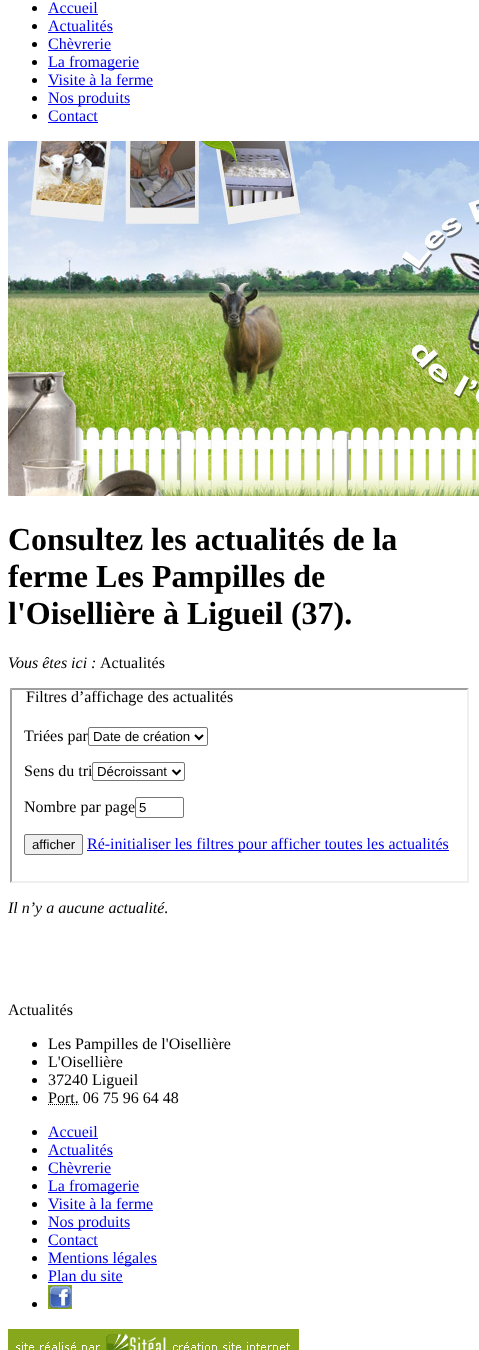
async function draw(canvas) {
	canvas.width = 479;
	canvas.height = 1350;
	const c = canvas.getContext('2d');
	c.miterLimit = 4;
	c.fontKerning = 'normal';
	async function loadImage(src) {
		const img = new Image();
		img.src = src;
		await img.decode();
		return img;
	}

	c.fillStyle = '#fff';
	c.fillRect(0, 0, 479, 1350);
	c.fillStyle = '#000';
	c.beginPath();
	c.arc(34.5, 8.5, 2.5, 0, 2 * Math.PI);
	c.fill();
	c.font = '16px Liberation Serif';
	c.fillStyle = '#00e';
	c.fillText('Accueil', 48, 13);
	c.fillRect(48, 14, 50, 1);
	c.fillStyle = '#000';
	c.beginPath();
	c.arc(34.5, 26.5, 2.5, 0, 2 * Math.PI);
	c.fill();
	c.fillStyle = '#00e';
	c.fillText('Actualités', 48, 31);
	c.fillRect(48, 32, 65, 1);
	c.fillStyle = '#000';
	c.beginPath();
	c.arc(34.5, 44.5, 2.5, 0, 2 * Math.PI);
	c.fill();
	c.fillStyle = '#00e';
	c.fillText('Chèvrerie', 48, 49);
	c.fillRect(48, 50, 63, 1);
	c.fillStyle = '#000';
	c.beginPath();
	c.arc(34.5, 62.5, 2.5, 0, 2 * Math.PI);
	c.fill();
	c.fillStyle = '#00e';
	c.fillRect(48, 68, 91, 1);
	c.fillText('La fromagerie', 48, 67);
	c.fillStyle = '#000';
	c.beginPath();
	c.arc(34.5, 80.5, 2.5, 0, 2 * Math.PI);
	c.fill();
	c.fillStyle = '#00e';
	c.fillText('Visite à la ferme', 48, 85);
	c.fillRect(48, 86, 105, 1);
	c.fillStyle = '#000';
	c.beginPath();
	c.arc(34.5, 98.5, 2.5, 0, 2 * Math.PI);
	c.fill();
	c.fillStyle = '#00e';
	c.fillRect(48, 104, 82, 1);
	c.fillText('Nos produits', 48, 103);
	c.fillStyle = '#000';
	c.beginPath();
	c.arc(34.5, 116.5, 2.5, 0, 2 * Math.PI);
	c.fill();
	c.fillStyle = '#00e';
	c.fillText('Contact', 48, 121);
	c.fillRect(48, 122, 50, 1);
	c.drawImage(await loadImage('img1.png'), 8, 141, 471, 355);
	c.font = 'bold 32px Liberation Serif';
	c.fillStyle = '#000';
	for (const [text, x, y] of [
		['Consultez les actualités de la', 8, 550],
		['ferme Les Pampilles de', 8, 587],
		['l\'Oisellière à Ligueil (37).', 8, 624],
	]) {
		c.fillText(text, x, y);
	}
	c.font = 'italic 16px Liberation Serif';
	c.fillText('Vous êtes ici :', 8, 668);
	c.font = '16px Liberation Serif';
	c.fillText('Actualités', 100, 668);
	c.fillStyle = '#9f9f9f';
	c.beginPath();
	c.moveTo(10, 688);
	c.lineTo(469, 688);
	c.lineTo(467, 690);
	c.lineTo(12, 690);
	c.closePath();
	c.fill();
	c.fillStyle = '#efefef';
	c.beginPath();
	c.moveTo(469, 688);
	c.lineTo(469, 883);
	c.lineTo(467, 881);
	c.lineTo(467, 690);
	c.closePath();
	c.fill();
	c.beginPath();
	c.moveTo(469, 883);
	c.lineTo(10, 883);
	c.lineTo(12, 881);
	c.lineTo(467, 881);
	c.closePath();
	c.fill();
	c.fillStyle = '#9f9f9f';
	c.beginPath();
	c.moveTo(10, 883);
	c.lineTo(10, 688);
	c.lineTo(12, 690);
	c.lineTo(12, 881);
	c.closePath();
	c.fill();
	c.fillStyle = '#000';
	c.fillText('Filtres d’affichage des actualités', 26, 702);
	c.fillText('Triées par', 24, 741);
	c.beginPath();
	c.roundRect(88.5, 727.5, 119, 18, 1.5);
	c.strokeStyle = '#767676';
	c.stroke();
	c.beginPath();
	c.moveTo(195, 735);
	c.lineTo(199, 739);
	c.lineTo(203, 735);
	c.strokeStyle = '#000';
	c.lineWidth = 2;
	c.stroke();
	c.font = '13.25px Liberation Sans';
	c.fillText('Date de création', 93, 741);
	c.font = '16px Liberation Serif';
	c.fillText('Sens du tri', 24, 776);
	c.fillStyle = '#fff';
	c.beginPath();
	c.roundRect(92.5, 762.5, 92, 18, 1.5);
	c.fill();
	c.strokeStyle = '#767676';
	c.lineWidth = 1;
	c.stroke();
	c.beginPath();
	c.moveTo(172.5, 770);
	c.lineTo(176.5, 774);
	c.lineTo(180.5, 770);
	c.strokeStyle = '#000';
	c.lineWidth = 2;
	c.stroke();
	c.font = '13.25px Liberation Sans';
	c.fillStyle = '#000';
	c.fillText('Décroissant', 97, 776);
	c.font = '16px Liberation Serif';
	c.fillText('Nombre par page', 24, 812);
	c.beginPath();
	c.roundRect(135.5, 797.5, 48, 20, 1.5);
	c.strokeStyle = '#767676';
	c.lineWidth = 1;
	c.stroke();
	c.font = '13.25px Liberation Sans';
	c.fillText('5', 139, 812);
	c.fillStyle = '#efefef';
	c.beginPath();
	c.roundRect(24.5, 834.5, 58, 20, 1.5);
	c.fill();
	c.stroke();
	c.fillStyle = '#000';
	c.fillText('afficher', 32, 849);
	c.fillStyle = '#00e';
	c.fillRect(87, 850, 362, 1);
	c.font = '16px Liberation Serif';
	c.fillText('Ré-initialiser les filtres pour afficher toutes les actualités', 87, 849);
	c.font = 'italic 16px Liberation Serif';
	c.fillStyle = '#000';
	c.fillText('Il n’y a aucune actualité.', 8, 913);
	c.font = '16px Liberation Serif';
	c.fillText('Actualités', 8, 1015);
	c.beginPath();
	c.arc(34.5, 1044.5, 2.5, 0, 2 * Math.PI);
	c.fill();
	c.fillText('Les Pampilles de l\'Oisellière', 48, 1049);
	c.beginPath();
	c.arc(34.5, 1062.5, 2.5, 0, 2 * Math.PI);
	c.fill();
	c.fillText('L\'Oisellière', 48, 1067);
	c.beginPath();
	c.arc(34.5, 1080.5, 2.5, 0, 2 * Math.PI);
	c.fill();
	c.fillText('37240 Ligueil', 48, 1085);
	c.beginPath();
	c.arc(34.5, 1098.5, 2.5, 0, 2 * Math.PI);
	c.fill();
	c.fillText('Port. 06 75 96 64 48', 48, 1103);
	c.beginPath();
	c.moveTo(48, 1104.5);
	c.lineTo(78.5, 1104.5);
	c.strokeStyle = '#000';
	c.setLineDash([1, 1]);
	c.stroke();
	c.beginPath();
	c.arc(34.5, 1132.5, 2.5, 0, 2 * Math.PI);
	c.fill();
	c.fillStyle = '#00e';
	c.fillText('Accueil', 48, 1137);
	c.fillRect(48, 1138, 50, 1);
	c.fillStyle = '#000';
	c.beginPath();
	c.arc(34.5, 1150.5, 2.5, 0, 2 * Math.PI);
	c.fill();
	c.fillStyle = '#00e';
	c.fillText('Actualités', 48, 1155);
	c.fillRect(48, 1156, 65, 1);
	c.fillStyle = '#000';
	c.beginPath();
	c.arc(34.5, 1168.5, 2.5, 0, 2 * Math.PI);
	c.fill();
	c.fillStyle = '#00e';
	c.fillText('Chèvrerie', 48, 1173);
	c.fillRect(48, 1174, 63, 1);
	c.fillStyle = '#000';
	c.beginPath();
	c.arc(34.5, 1186.5, 2.5, 0, 2 * Math.PI);
	c.fill();
	c.fillStyle = '#00e';
	c.fillRect(48, 1192, 91, 1);
	c.fillText('La fromagerie', 48, 1191);
	c.fillStyle = '#000';
	c.beginPath();
	c.arc(34.5, 1204.5, 2.5, 0, 2 * Math.PI);
	c.fill();
	c.fillStyle = '#00e';
	c.fillText('Visite à la ferme', 48, 1209);
	c.fillRect(48, 1210, 105, 1);
	c.fillStyle = '#000';
	c.beginPath();
	c.arc(34.5, 1222.5, 2.5, 0, 2 * Math.PI);
	c.fill();
	c.fillStyle = '#00e';
	c.fillRect(48, 1228, 82, 1);
	c.fillText('Nos produits', 48, 1227);
	c.fillStyle = '#000';
	c.beginPath();
	c.arc(34.5, 1240.5, 2.5, 0, 2 * Math.PI);
	c.fill();
	c.fillStyle = '#00e';
	c.fillText('Contact', 48, 1245);
	c.fillRect(48, 1246, 50, 1);
	c.fillStyle = '#000';
	c.beginPath();
	c.arc(34.5, 1258.5, 2.5, 0, 2 * Math.PI);
	c.fill();
	c.fillStyle = '#00e';
	c.fillRect(48, 1264, 109, 1);
	c.fillText('Mentions légales', 48, 1263);
	c.fillStyle = '#000';
	c.beginPath();
	c.arc(34.5, 1276.5, 2.5, 0, 2 * Math.PI);
	c.fill();
	c.fillStyle = '#00e';
	c.fillText('Plan du site', 48, 1281);
	c.fillRect(48, 1282, 75, 1);
	c.fillStyle = '#000';
	c.beginPath();
	c.arc(34.5, 1304.5, 2.5, 0, 2 * Math.PI);
	c.fill();
	c.drawImage(await loadImage('img2.png'), 48, 1285, 24, 24);
	c.drawImage(await loadImage('img3.png'), 8, 1329, 291, 21);
}

draw(document.querySelector('canvas'));
